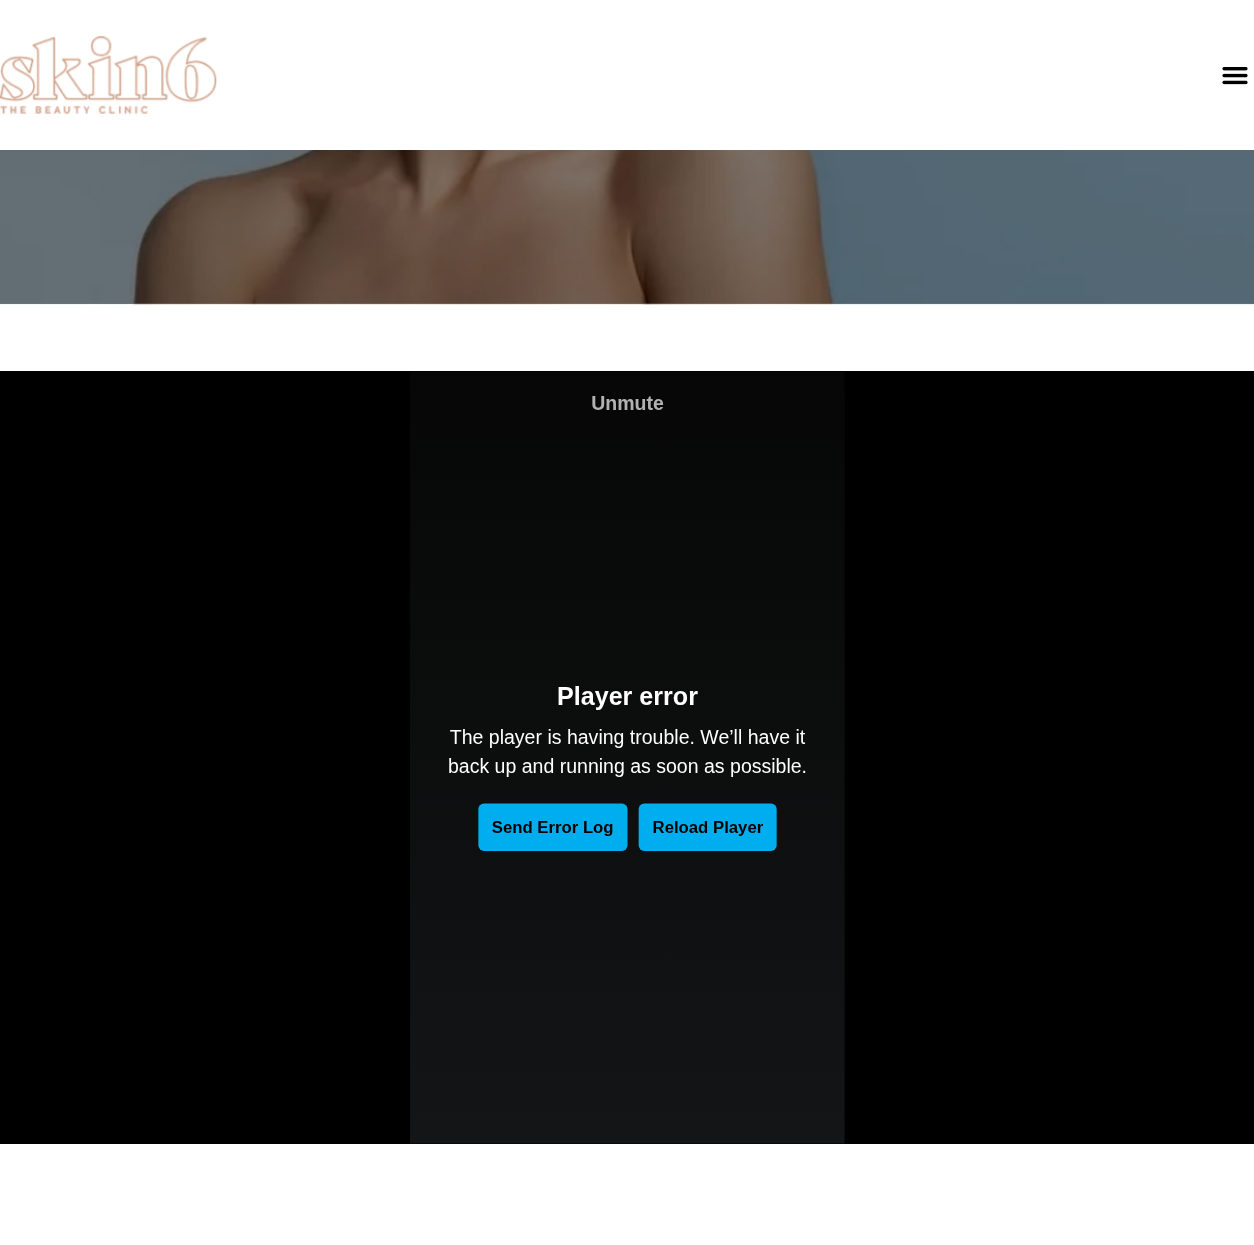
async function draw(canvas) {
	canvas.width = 1254;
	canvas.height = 1245;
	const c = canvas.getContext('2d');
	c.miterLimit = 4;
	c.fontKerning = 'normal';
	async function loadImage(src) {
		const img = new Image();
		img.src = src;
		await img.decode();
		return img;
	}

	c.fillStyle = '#fff';
	c.fillRect(0, 0, 1254, 1245);
	c.drawImage(await loadImage('img1.png'), 0, 36, 217, 78);
	c.drawImage(await loadImage('img2.png'), 1222, 67, 26, 18);
	c.fillStyle = '#7a7b7c';
	c.fillRect(0, 303, 1254, 1);
	c.drawImage(await loadImage('img3.png'), 0, 150, 1254, 155);
	c.fillStyle = '#000';
	c.fillRect(0, 371, 1254, 773);
	c.drawImage(await loadImage('img4.png'), 410, 372, 435, 772);
}

draw(document.querySelector('canvas'));
